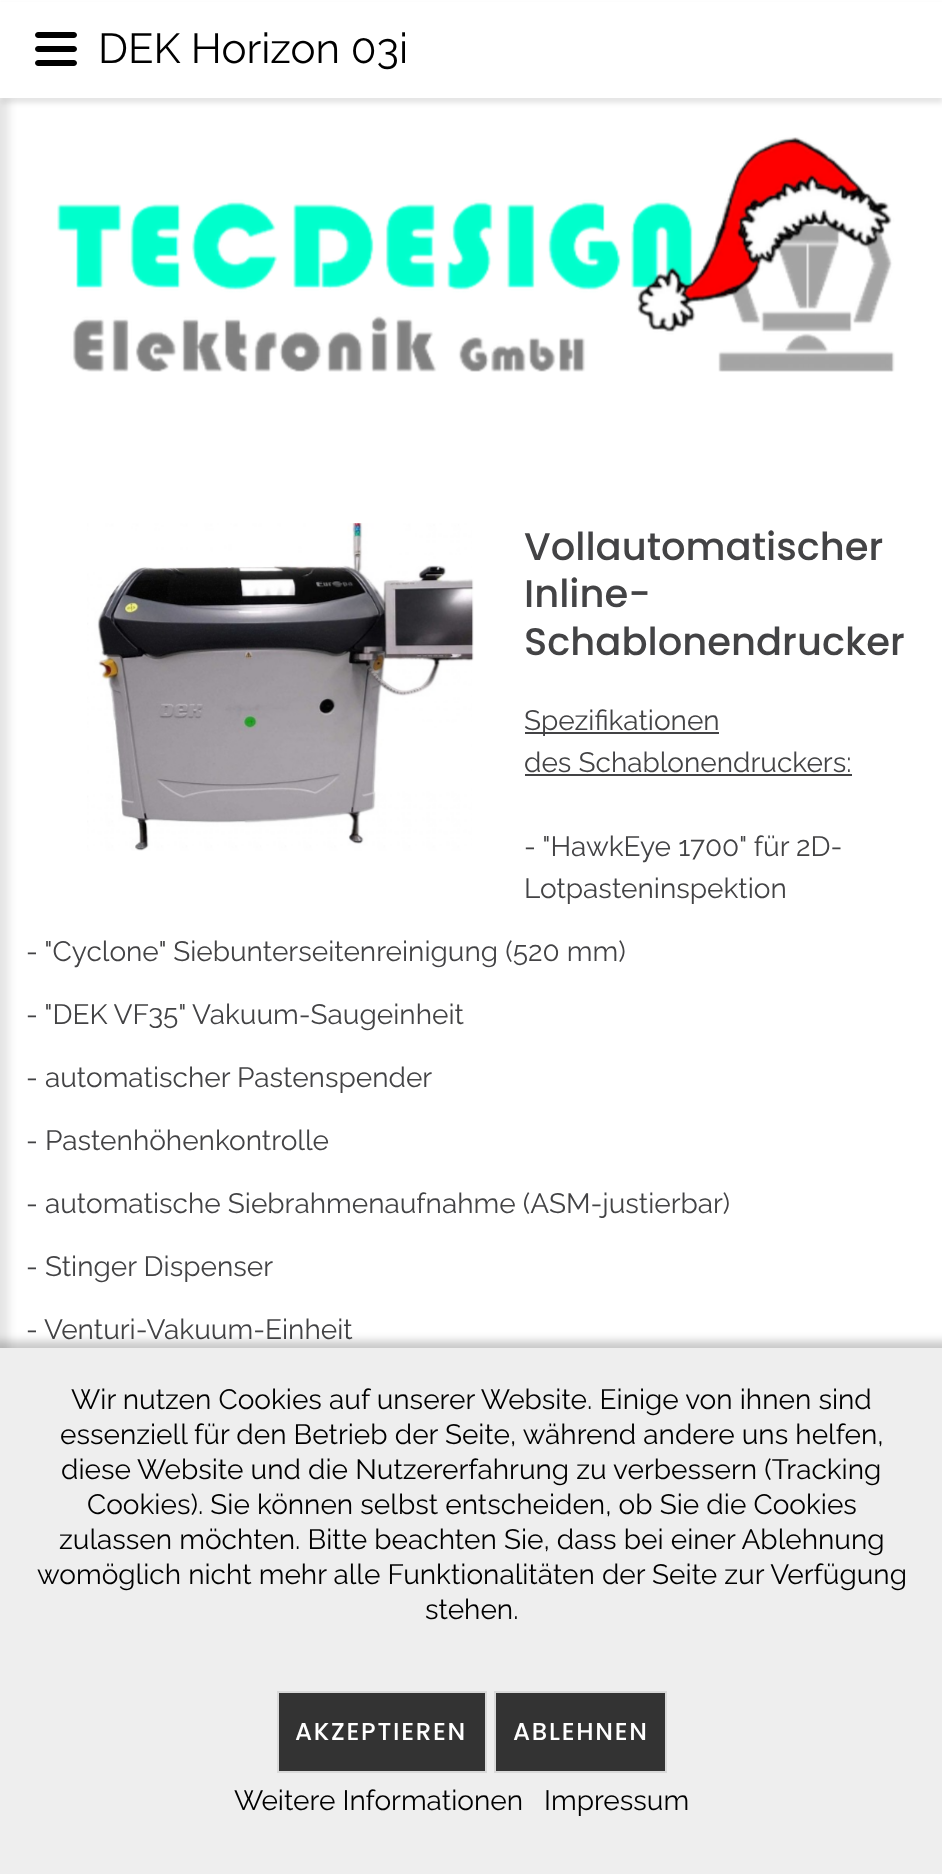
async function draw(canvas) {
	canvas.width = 942;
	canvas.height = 1874;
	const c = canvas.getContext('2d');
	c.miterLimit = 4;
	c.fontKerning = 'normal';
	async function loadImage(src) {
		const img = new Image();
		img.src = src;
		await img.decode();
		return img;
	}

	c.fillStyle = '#fff';
	c.fillRect(0, 0, 942, 1874);
	c.fillStyle = '#0000001a';
	c.filter = 'blur(2.5px)';
	c.beginPath();
	c.rect(0, 5, 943, 98);
	c.fill();
	c.filter = 'none';
	c.filter = 'blur(4.5px)';
	c.beginPath();
	c.rect(-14, 98, 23, 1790);
	c.fill();
	c.filter = 'none';
	c.fillStyle = '#fff';
	c.fillRect(0, 2, 942, 96);
	c.fillStyle = '#000';
	c.beginPath();
	c.moveTo(74, 52);
	c.lineTo(38, 52);
	c.bezierCurveTo(37, 52, 35, 51, 35, 49);
	c.bezierCurveTo(35, 47, 37, 46, 38, 46);
	c.lineTo(74, 46);
	c.bezierCurveTo(75, 46, 77, 47, 77, 49);
	c.bezierCurveTo(77, 51, 75, 52, 74, 52);
	c.closePath();
	c.moveTo(74, 66);
	c.lineTo(38, 66);
	c.bezierCurveTo(37, 66, 35, 65, 35, 63);
	c.bezierCurveTo(35, 61, 37, 60, 38, 60);
	c.lineTo(74, 60);
	c.bezierCurveTo(75, 60, 77, 61, 77, 63);
	c.bezierCurveTo(77, 65, 75, 66, 74, 66);
	c.closePath();
	c.moveTo(74, 38);
	c.lineTo(38, 38);
	c.bezierCurveTo(37, 38, 35, 37, 35, 35);
	c.bezierCurveTo(35, 33, 37, 32, 38, 32);
	c.lineTo(74, 32);
	c.bezierCurveTo(75, 32, 77, 33, 77, 35);
	c.bezierCurveTo(77, 37, 75, 38, 74, 38);
	c.closePath();
	c.fill();
	c.font = '42px Raleway';
	c.fillText('DEK Horizon 03i', 98, 63);
	c.drawImage(await loadImage('img1.png'), 57, 137, 838, 235);
	c.drawImage(await loadImage('img2.png'), 87, 523, 387, 328);
	c.font = '500 38.5px Poppins';
	c.fillStyle = '#434345';
	for (const [text, x, y] of [
		['Vollautomatischer', 524, 560],
		['Inline-', 524, 607],
		['Schablonendrucker', 524, 655],
	]) {
		c.fillText(text, x, y);
	}
	c.fillRect(525, 732, 194, 2);
	c.font = '28px Raleway';
	c.fillText('Spezifikationen', 524, 730);
	c.fillText('des Schablonendruckers:', 524, 772);
	c.fillRect(525, 774, 327, 2);
	for (const [text, x, y] of [
		['- "HawkEye 1700" für 2D-', 524, 856],
		['Lotpasteninspektion', 524, 898],
		['- "Cyclone" Siebunterseitenreinigung (520 mm)', 26, 961],
		['- "DEK VF35" Vakuum-Saugeinheit', 26, 1024],
		['- automatischer Pastenspender', 26, 1087],
		['- Pastenhöhenkontrolle', 26, 1150],
		['- automatische Siebrahmenaufnahme (ASM-justierbar)', 26, 1213],
		['- Stinger Dispenser', 26, 1276],
		['- Venturi-Vakuum-Einheit', 26, 1339],
	]) {
		c.fillText(text, x, y);
	}
	c.fillStyle = '#00000036';
	c.filter = 'blur(4.5px)';
	c.beginPath();
	c.rect(-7, 1341, 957, 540);
	c.fill();
	c.filter = 'none';
	c.fillStyle = '#eee';
	c.fillRect(0, 1348, 942, 526);
	c.fillStyle = '#000';
	for (const [text, x, y] of [
		['Wir nutzen Cookies auf unserer Website. Einige von ihnen sind', 71, 1409],
		['essenziell für den Betrieb der Seite, während andere uns helfen,', 60, 1444],
		['diese Website und die Nutzererfahrung zu verbessern (Tracking', 61, 1479],
		['Cookies). Sie können selbst entscheiden, ob Sie die Cookies', 87, 1514],
		['zulassen möchten. Bitte beachten Sie, dass bei einer Ablehnung', 59, 1549],
		['womöglich nicht mehr alle Funktionalitäten der Seite zur Verfügung', 37, 1584],
		['stehen.', 425, 1619],
	]) {
		c.fillText(text, x, y);
	}
	c.fillStyle = '#333';
	c.beginPath();
	c.rect(278, 1692, 208, 80);
	c.fill();
	c.strokeStyle = '#d9d9d9';
	c.lineWidth = 2;
	c.stroke();
	c.letterSpacing = '1.75px';
	c.font = '500 24.5px Poppins';
	c.fillStyle = '#fff';
	c.fillText('AKZEPTIEREN', 295, 1740);
	c.fillStyle = '#333';
	c.beginPath();
	c.rect(495, 1692, 171, 80);
	c.fill();
	c.stroke();
	c.fillStyle = '#fff';
	c.fillText('ABLEHNEN', 513, 1740);
	c.letterSpacing = '0px';
	c.font = '28px Raleway';
	c.fillStyle = '#000';
	c.fillText('Weitere Informationen', 234, 1810);
	c.fillText('Impressum', 544, 1810);
}

draw(document.querySelector('canvas'));
